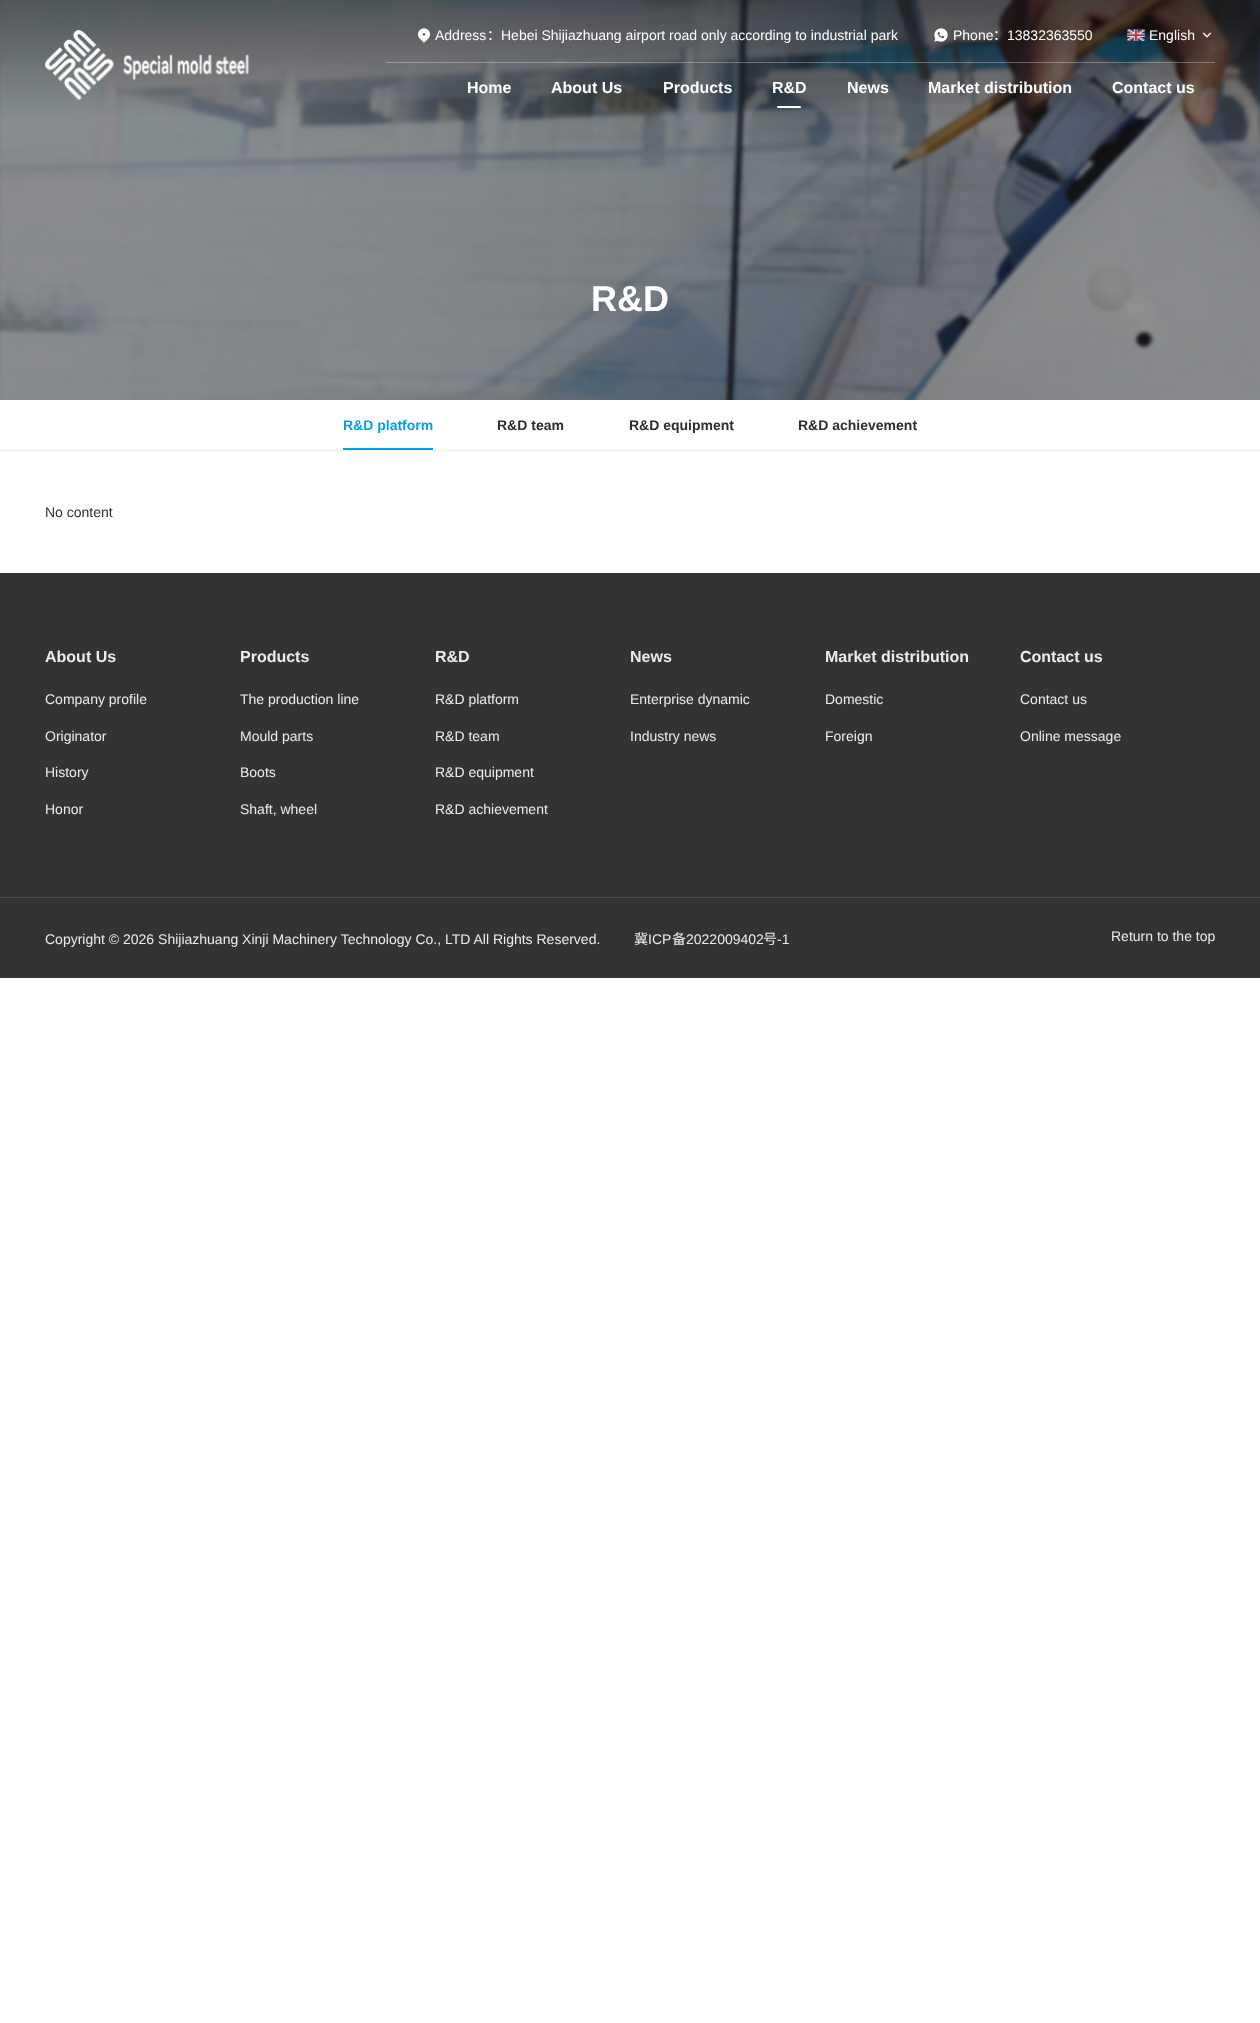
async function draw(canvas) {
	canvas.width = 1260;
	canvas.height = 2023;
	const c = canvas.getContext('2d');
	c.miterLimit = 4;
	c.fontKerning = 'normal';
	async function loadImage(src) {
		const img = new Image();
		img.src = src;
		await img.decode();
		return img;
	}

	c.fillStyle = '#fff';
	c.fillRect(0, 0, 1260, 2023);
	c.drawImage(await loadImage('img6.png'), 0, 0, 1260, 400);
	c.drawImage(await loadImage('img1.png'), 45, 30, 204, 70);
	c.fillStyle = '#ffffff4d';
	c.fillRect(386, 62, 829, 1);
	c.drawImage(await loadImage('img2.png'), 418, 28, 12, 15);
	c.font = '14px Liberation Sans';
	c.fillStyle = '#fff';
	c.fillText('Address', 435, 40);
	c.font = '14px Noto Sans CJK SC';
	c.fillText('：', 487, 40);
	c.font = '14px Liberation Sans';
	c.fillText('Hebei Shijiazhuang airport road only according to industrial park', 501, 40);
	c.drawImage(await loadImage('img3.png'), 934, 28, 14, 14);
	c.fillText('Phone', 953, 40);
	c.font = '14px Noto Sans CJK SC';
	c.fillText('：', 993, 40);
	c.font = '14px Liberation Sans';
	c.fillText('13832363550', 1007, 40);
	c.drawImage(await loadImage('img4.png'), 1127, 29, 19, 12);
	c.fillText('English', 1149, 40);
	c.drawImage(await loadImage('img5.png'), 1202, 32, 10, 6);
	c.font = 'bold 16px Liberation Sans';
	for (const [text, x, y] of [
		['Home', 467, 93],
		['About Us', 551, 93],
		['Products', 663, 93],
		['R&D', 772, 93],
	]) {
		c.fillText(text, x, y);
	}
	c.beginPath();
	c.roundRect(777, 106, 24, 2, 1);
	c.fill();
	for (const [text, x, y] of [
		['News', 847, 93],
		['Market distribution', 928, 93],
		['Contact us', 1112, 93],
	]) {
		c.fillText(text, x, y);
	}
	c.font = 'bold 36px Liberation Sans';
	c.fillText('R&D', 591, 311);
	c.fillStyle = '#ececec';
	c.fillRect(0, 450, 1260, 1);
	c.font = 'bold 14px Liberation Sans';
	c.fillStyle = '#00a2e9';
	c.fillText('R&D platform', 343, 430);
	c.fillRect(343, 448, 90, 2);
	c.fillStyle = '#2e2e2e';
	for (const [text, x, y] of [
		['R&D team', 497, 430],
		['R&D equipment', 629, 430],
		['R&D achievement', 798, 430],
	]) {
		c.fillText(text, x, y);
	}
	c.font = '14px Liberation Sans';
	c.fillText('No content', 45, 517);
	c.fillStyle = '#333';
	c.fillRect(0, 573, 1260, 324);
	c.font = 'bold 16px Liberation Sans';
	c.fillStyle = '#ececec';
	c.fillText('About Us', 45, 662);
	c.font = '14px Liberation Sans';
	for (const [text, x, y] of [
		['Company profile', 45, 704],
		['Originator', 45, 741],
		['History', 45, 777],
		['Honor', 45, 814],
	]) {
		c.fillText(text, x, y);
	}
	c.font = 'bold 16px Liberation Sans';
	c.fillText('Products', 240, 662);
	c.font = '14px Liberation Sans';
	for (const [text, x, y] of [
		['The production line', 240, 704],
		['Mould parts', 240, 741],
		['Boots', 240, 777],
		['Shaft, wheel', 240, 814],
	]) {
		c.fillText(text, x, y);
	}
	c.font = 'bold 16px Liberation Sans';
	c.fillText('R&D', 435, 662);
	c.font = '14px Liberation Sans';
	for (const [text, x, y] of [
		['R&D platform', 435, 704],
		['R&D team', 435, 741],
		['R&D equipment', 435, 777],
		['R&D achievement', 435, 814],
	]) {
		c.fillText(text, x, y);
	}
	c.font = 'bold 16px Liberation Sans';
	c.fillText('News', 630, 662);
	c.font = '14px Liberation Sans';
	c.fillText('Enterprise dynamic', 630, 704);
	c.fillText('Industry news', 630, 741);
	c.font = 'bold 16px Liberation Sans';
	c.fillText('Market distribution', 825, 662);
	c.font = '14px Liberation Sans';
	c.fillText('Domestic', 825, 704);
	c.fillText('Foreign', 825, 741);
	c.font = 'bold 16px Liberation Sans';
	c.fillText('Contact us', 1020, 662);
	c.font = '14px Liberation Sans';
	c.fillText('Contact us', 1020, 704);
	c.fillText('Online message', 1020, 741);
	c.fillStyle = '#333';
	c.fillRect(0, 898, 1260, 80);
	c.fillStyle = '#484848';
	c.fillRect(0, 897, 1260, 1);
	c.fillStyle = '#ececec';
	c.fillText('Copyright © 2026 Shijiazhuang Xinji Machinery Technology Co., LTD All Rights Reserved.', 45, 944);
	c.font = '14px Noto Sans CJK SC';
	c.fillText('冀', 634, 944);
	c.font = '14px Liberation Sans';
	c.fillText('ICP', 648, 944);
	c.font = '14px Noto Sans CJK SC';
	c.fillText('备', 672, 944);
	c.font = '14px Liberation Sans';
	c.fillText('2022009402', 686, 944);
	c.font = '14px Noto Sans CJK SC';
	c.fillText('号', 763, 944);
	c.font = '14px Liberation Sans';
	c.fillText('-1', 777, 944);
	c.fillText('Return to the top', 1111, 941);
}

draw(document.querySelector('canvas'));
